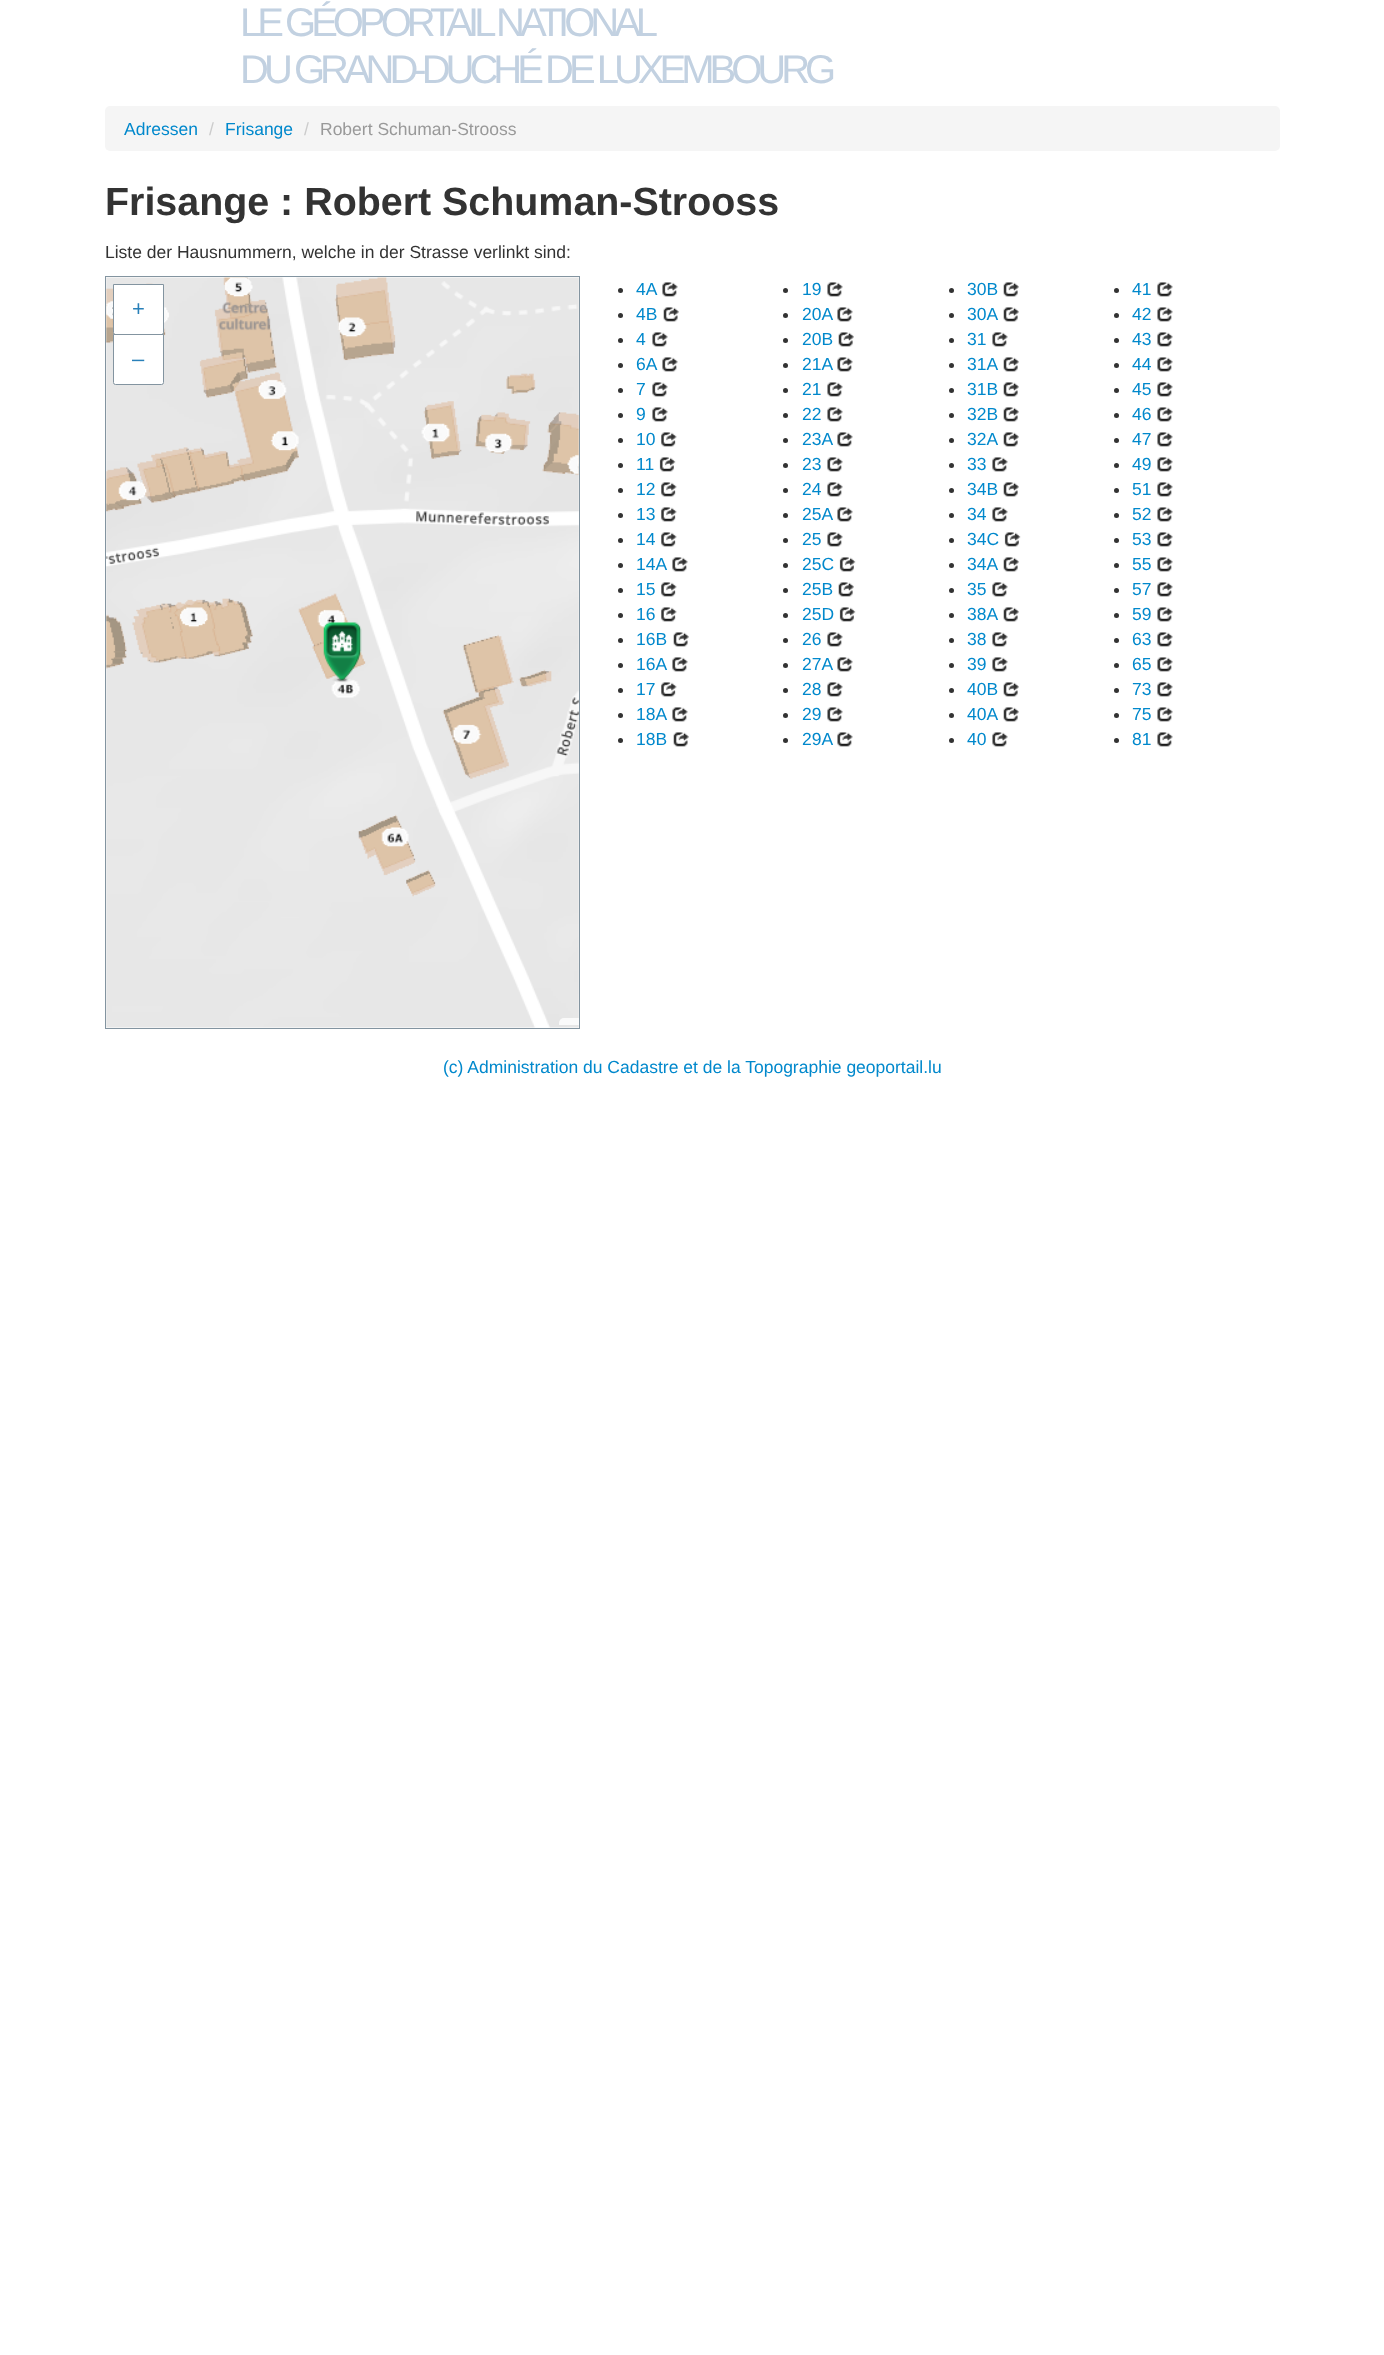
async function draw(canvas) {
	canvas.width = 1384;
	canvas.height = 2355;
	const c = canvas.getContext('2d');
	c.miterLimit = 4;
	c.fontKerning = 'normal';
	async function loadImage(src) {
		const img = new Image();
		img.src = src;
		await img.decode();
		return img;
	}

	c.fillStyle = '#fff';
	c.fillRect(0, 0, 1384, 2355);
	c.letterSpacing = '-5px';
	c.font = '40px Liberation Sans';
	c.fillStyle = '#c2d1e1';
	c.fillText('LE GÉOPORTAIL NATIONAL', 240, 36);
	c.fillText('DU GRAND-DUCHÉ DE LUXEMBOURG', 240, 83);
	c.fillStyle = '#f5f5f5';
	c.beginPath();
	c.roundRect(105, 106, 1175, 45, 5);
	c.fill();
	c.letterSpacing = '0px';
	c.font = '17.5px Liberation Sans';
	c.fillStyle = '#08c';
	c.fillText('Adressen', 124, 135);
	c.fillStyle = '#ccc';
	c.fillText('/', 209, 135);
	c.fillStyle = '#08c';
	c.fillText('Frisange', 225, 135);
	c.fillStyle = '#ccc';
	c.fillText('/', 304, 135);
	c.fillStyle = '#999';
	c.fillText('Robert Schuman-Strooss', 320, 135);
	c.font = 'bold 39.4px Liberation Sans';
	c.fillStyle = '#333';
	c.fillText('Frisange : Robert Schuman-Strooss', 105, 215);
	c.font = '17.5px Liberation Sans';
	c.fillText('Liste der Hausnummern, welche in der Strasse verlinkt sind:', 105, 258);
	c.strokeStyle = '#8394a0';
	c.strokeRect(105.5, 276.5, 474, 752);
	c.drawImage(await loadImage('img1.png'), 106, 277, 473, 751);
	c.drawImage(await loadImage('img2.png'), 106, 277, 473, 570);
	c.fillStyle = '#fff';
	c.beginPath();
	c.roundRect(113.5, 284.5, 50, 50, [0, 0, 2, 2]);
	c.fill();
	c.stroke();
	c.font = '22px Liberation Sans';
	c.fillStyle = '#2980b9';
	c.fillText('+', 132, 316);
	c.fillStyle = '#fff';
	c.beginPath();
	c.roundRect(113.5, 334.5, 50, 50, [0, 0, 2, 2]);
	c.fill();
	c.stroke();
	c.fillStyle = '#2980b9';
	c.fillText('–', 132, 366);
	c.drawImage(await loadImage('img3.png'), 323, 622, 39, 61);
	c.fillStyle = '#ffffffcc';
	c.beginPath();
	c.roundRect(559, 1018, 20, 7, [5, 0, 0, 0]);
	c.fill();
	c.fillStyle = '#333';
	c.beginPath();
	c.arc(620.5, 290.5, 2.5, 0, 2 * Math.PI);
	c.fill();
	c.font = '17.5px Liberation Sans';
	c.fillStyle = '#08c';
	c.fillText('4A', 636, 295);
	c.drawImage(await loadImage('img4.png'), 662, 282, 16, 15);
	c.fillStyle = '#333';
	c.beginPath();
	c.arc(785.5, 290.5, 2.5, 0, 2 * Math.PI);
	c.fill();
	c.fillStyle = '#08c';
	c.fillText('19', 802, 295);
	c.drawImage(await loadImage('img4.png'), 827, 282, 16, 15);
	c.fillStyle = '#333';
	c.beginPath();
	c.arc(951.5, 290.5, 2.5, 0, 2 * Math.PI);
	c.fill();
	c.fillStyle = '#08c';
	c.fillText('30B', 967, 295);
	c.drawImage(await loadImage('img5.png'), 1003, 282, 16, 15);
	c.fillStyle = '#333';
	c.beginPath();
	c.arc(1116.5, 290.5, 2.5, 0, 2 * Math.PI);
	c.fill();
	c.fillStyle = '#08c';
	c.fillText('41', 1132, 295);
	c.drawImage(await loadImage('img4.png'), 1157, 282, 16, 15);
	c.fillStyle = '#333';
	c.beginPath();
	c.arc(620.5, 315.5, 2.5, 0, 2 * Math.PI);
	c.fill();
	c.fillStyle = '#08c';
	c.fillText('4B', 636, 320);
	c.drawImage(await loadImage('img6.png'), 663, 307, 16, 15);
	c.fillStyle = '#333';
	c.beginPath();
	c.arc(785.5, 315.5, 2.5, 0, 2 * Math.PI);
	c.fill();
	c.fillStyle = '#08c';
	c.fillText('20A', 802, 320);
	c.drawImage(await loadImage('img4.png'), 837, 307, 16, 15);
	c.fillStyle = '#333';
	c.beginPath();
	c.arc(951.5, 315.5, 2.5, 0, 2 * Math.PI);
	c.fill();
	c.fillStyle = '#08c';
	c.fillText('30A', 967, 320);
	c.drawImage(await loadImage('img5.png'), 1003, 307, 16, 15);
	c.fillStyle = '#333';
	c.beginPath();
	c.arc(1116.5, 315.5, 2.5, 0, 2 * Math.PI);
	c.fill();
	c.fillStyle = '#08c';
	c.fillText('42', 1132, 320);
	c.drawImage(await loadImage('img4.png'), 1157, 307, 16, 15);
	c.fillStyle = '#333';
	c.beginPath();
	c.arc(620.5, 340.5, 2.5, 0, 2 * Math.PI);
	c.fill();
	c.fillStyle = '#08c';
	c.fillText('4', 636, 345);
	c.drawImage(await loadImage('img4.png'), 652, 332, 16, 15);
	c.fillStyle = '#333';
	c.beginPath();
	c.arc(785.5, 340.5, 2.5, 0, 2 * Math.PI);
	c.fill();
	c.fillStyle = '#08c';
	c.fillText('20B', 802, 345);
	c.drawImage(await loadImage('img5.png'), 838, 332, 16, 15);
	c.fillStyle = '#333';
	c.beginPath();
	c.arc(951.5, 340.5, 2.5, 0, 2 * Math.PI);
	c.fill();
	c.fillStyle = '#08c';
	c.fillText('31', 967, 345);
	c.drawImage(await loadImage('img4.png'), 992, 332, 16, 15);
	c.fillStyle = '#333';
	c.beginPath();
	c.arc(1116.5, 340.5, 2.5, 0, 2 * Math.PI);
	c.fill();
	c.fillStyle = '#08c';
	c.fillText('43', 1132, 345);
	c.drawImage(await loadImage('img4.png'), 1157, 332, 16, 15);
	c.fillStyle = '#333';
	c.beginPath();
	c.arc(620.5, 365.5, 2.5, 0, 2 * Math.PI);
	c.fill();
	c.fillStyle = '#08c';
	c.fillText('6A', 636, 370);
	c.drawImage(await loadImage('img4.png'), 662, 357, 16, 15);
	c.fillStyle = '#333';
	c.beginPath();
	c.arc(785.5, 365.5, 2.5, 0, 2 * Math.PI);
	c.fill();
	c.fillStyle = '#08c';
	c.fillText('21A', 802, 370);
	c.drawImage(await loadImage('img4.png'), 837, 357, 16, 15);
	c.fillStyle = '#333';
	c.beginPath();
	c.arc(951.5, 365.5, 2.5, 0, 2 * Math.PI);
	c.fill();
	c.fillStyle = '#08c';
	c.fillText('31A', 967, 370);
	c.drawImage(await loadImage('img5.png'), 1003, 357, 16, 15);
	c.fillStyle = '#333';
	c.beginPath();
	c.arc(1116.5, 365.5, 2.5, 0, 2 * Math.PI);
	c.fill();
	c.fillStyle = '#08c';
	c.fillText('44', 1132, 370);
	c.drawImage(await loadImage('img4.png'), 1157, 357, 16, 15);
	c.fillStyle = '#333';
	c.beginPath();
	c.arc(620.5, 390.5, 2.5, 0, 2 * Math.PI);
	c.fill();
	c.fillStyle = '#08c';
	c.fillText('7', 636, 395);
	c.drawImage(await loadImage('img4.png'), 652, 382, 16, 15);
	c.fillStyle = '#333';
	c.beginPath();
	c.arc(785.5, 390.5, 2.5, 0, 2 * Math.PI);
	c.fill();
	c.fillStyle = '#08c';
	c.fillText('21', 802, 395);
	c.drawImage(await loadImage('img4.png'), 827, 382, 16, 15);
	c.fillStyle = '#333';
	c.beginPath();
	c.arc(951.5, 390.5, 2.5, 0, 2 * Math.PI);
	c.fill();
	c.fillStyle = '#08c';
	c.fillText('31B', 967, 395);
	c.drawImage(await loadImage('img5.png'), 1003, 382, 16, 15);
	c.fillStyle = '#333';
	c.beginPath();
	c.arc(1116.5, 390.5, 2.5, 0, 2 * Math.PI);
	c.fill();
	c.fillStyle = '#08c';
	c.fillText('45', 1132, 395);
	c.drawImage(await loadImage('img4.png'), 1157, 382, 16, 15);
	c.fillStyle = '#333';
	c.beginPath();
	c.arc(620.5, 415.5, 2.5, 0, 2 * Math.PI);
	c.fill();
	c.fillStyle = '#08c';
	c.fillText('9', 636, 420);
	c.drawImage(await loadImage('img4.png'), 652, 407, 16, 15);
	c.fillStyle = '#333';
	c.beginPath();
	c.arc(785.5, 415.5, 2.5, 0, 2 * Math.PI);
	c.fill();
	c.fillStyle = '#08c';
	c.fillText('22', 802, 420);
	c.drawImage(await loadImage('img4.png'), 827, 407, 16, 15);
	c.fillStyle = '#333';
	c.beginPath();
	c.arc(951.5, 415.5, 2.5, 0, 2 * Math.PI);
	c.fill();
	c.fillStyle = '#08c';
	c.fillText('32B', 967, 420);
	c.drawImage(await loadImage('img5.png'), 1003, 407, 16, 15);
	c.fillStyle = '#333';
	c.beginPath();
	c.arc(1116.5, 415.5, 2.5, 0, 2 * Math.PI);
	c.fill();
	c.fillStyle = '#08c';
	c.fillText('46', 1132, 420);
	c.drawImage(await loadImage('img4.png'), 1157, 407, 16, 15);
	c.fillStyle = '#333';
	c.beginPath();
	c.arc(620.5, 440.5, 2.5, 0, 2 * Math.PI);
	c.fill();
	c.fillStyle = '#08c';
	c.fillText('10', 636, 445);
	c.drawImage(await loadImage('img7.png'), 661, 432, 16, 15);
	c.fillStyle = '#333';
	c.beginPath();
	c.arc(785.5, 440.5, 2.5, 0, 2 * Math.PI);
	c.fill();
	c.fillStyle = '#08c';
	c.fillText('23A', 802, 445);
	c.drawImage(await loadImage('img4.png'), 837, 432, 16, 15);
	c.fillStyle = '#333';
	c.beginPath();
	c.arc(951.5, 440.5, 2.5, 0, 2 * Math.PI);
	c.fill();
	c.fillStyle = '#08c';
	c.fillText('32A', 967, 445);
	c.drawImage(await loadImage('img5.png'), 1003, 432, 16, 15);
	c.fillStyle = '#333';
	c.beginPath();
	c.arc(1116.5, 440.5, 2.5, 0, 2 * Math.PI);
	c.fill();
	c.fillStyle = '#08c';
	c.fillText('47', 1132, 445);
	c.drawImage(await loadImage('img4.png'), 1157, 432, 16, 15);
	c.fillStyle = '#333';
	c.beginPath();
	c.arc(620.5, 465.5, 2.5, 0, 2 * Math.PI);
	c.fill();
	c.fillStyle = '#08c';
	c.fillText('11', 636, 470);
	c.drawImage(await loadImage('img8.png'), 659, 457, 17, 15);
	c.fillStyle = '#333';
	c.beginPath();
	c.arc(785.5, 465.5, 2.5, 0, 2 * Math.PI);
	c.fill();
	c.fillStyle = '#08c';
	c.fillText('23', 802, 470);
	c.drawImage(await loadImage('img4.png'), 827, 457, 16, 15);
	c.fillStyle = '#333';
	c.beginPath();
	c.arc(951.5, 465.5, 2.5, 0, 2 * Math.PI);
	c.fill();
	c.fillStyle = '#08c';
	c.fillText('33', 967, 470);
	c.drawImage(await loadImage('img4.png'), 992, 457, 16, 15);
	c.fillStyle = '#333';
	c.beginPath();
	c.arc(1116.5, 465.5, 2.5, 0, 2 * Math.PI);
	c.fill();
	c.fillStyle = '#08c';
	c.fillText('49', 1132, 470);
	c.drawImage(await loadImage('img4.png'), 1157, 457, 16, 15);
	c.fillStyle = '#333';
	c.beginPath();
	c.arc(620.5, 490.5, 2.5, 0, 2 * Math.PI);
	c.fill();
	c.fillStyle = '#08c';
	c.fillText('12', 636, 495);
	c.drawImage(await loadImage('img7.png'), 661, 482, 16, 15);
	c.fillStyle = '#333';
	c.beginPath();
	c.arc(785.5, 490.5, 2.5, 0, 2 * Math.PI);
	c.fill();
	c.fillStyle = '#08c';
	c.fillText('24', 802, 495);
	c.drawImage(await loadImage('img4.png'), 827, 482, 16, 15);
	c.fillStyle = '#333';
	c.beginPath();
	c.arc(951.5, 490.5, 2.5, 0, 2 * Math.PI);
	c.fill();
	c.fillStyle = '#08c';
	c.fillText('34B', 967, 495);
	c.drawImage(await loadImage('img5.png'), 1003, 482, 16, 15);
	c.fillStyle = '#333';
	c.beginPath();
	c.arc(1116.5, 490.5, 2.5, 0, 2 * Math.PI);
	c.fill();
	c.fillStyle = '#08c';
	c.fillText('51', 1132, 495);
	c.drawImage(await loadImage('img4.png'), 1157, 482, 16, 15);
	c.fillStyle = '#333';
	c.beginPath();
	c.arc(620.5, 515.5, 2.5, 0, 2 * Math.PI);
	c.fill();
	c.fillStyle = '#08c';
	c.fillText('13', 636, 520);
	c.drawImage(await loadImage('img7.png'), 661, 507, 16, 15);
	c.fillStyle = '#333';
	c.beginPath();
	c.arc(785.5, 515.5, 2.5, 0, 2 * Math.PI);
	c.fill();
	c.fillStyle = '#08c';
	c.fillText('25A', 802, 520);
	c.drawImage(await loadImage('img4.png'), 837, 507, 16, 15);
	c.fillStyle = '#333';
	c.beginPath();
	c.arc(951.5, 515.5, 2.5, 0, 2 * Math.PI);
	c.fill();
	c.fillStyle = '#08c';
	c.fillText('34', 967, 520);
	c.drawImage(await loadImage('img4.png'), 992, 507, 16, 15);
	c.fillStyle = '#333';
	c.beginPath();
	c.arc(1116.5, 515.5, 2.5, 0, 2 * Math.PI);
	c.fill();
	c.fillStyle = '#08c';
	c.fillText('52', 1132, 520);
	c.drawImage(await loadImage('img4.png'), 1157, 507, 16, 15);
	c.fillStyle = '#333';
	c.beginPath();
	c.arc(620.5, 540.5, 2.5, 0, 2 * Math.PI);
	c.fill();
	c.fillStyle = '#08c';
	c.fillText('14', 636, 545);
	c.drawImage(await loadImage('img7.png'), 661, 532, 16, 15);
	c.fillStyle = '#333';
	c.beginPath();
	c.arc(785.5, 540.5, 2.5, 0, 2 * Math.PI);
	c.fill();
	c.fillStyle = '#08c';
	c.fillText('25', 802, 545);
	c.drawImage(await loadImage('img4.png'), 827, 532, 16, 15);
	c.fillStyle = '#333';
	c.beginPath();
	c.arc(951.5, 540.5, 2.5, 0, 2 * Math.PI);
	c.fill();
	c.fillStyle = '#08c';
	c.fillText('34C', 967, 545);
	c.drawImage(await loadImage('img9.png'), 1004, 532, 17, 15);
	c.fillStyle = '#333';
	c.beginPath();
	c.arc(1116.5, 540.5, 2.5, 0, 2 * Math.PI);
	c.fill();
	c.fillStyle = '#08c';
	c.fillText('53', 1132, 545);
	c.drawImage(await loadImage('img4.png'), 1157, 532, 16, 15);
	c.fillStyle = '#333';
	c.beginPath();
	c.arc(620.5, 565.5, 2.5, 0, 2 * Math.PI);
	c.fill();
	c.fillStyle = '#08c';
	c.fillText('14A', 636, 570);
	c.drawImage(await loadImage('img4.png'), 672, 557, 16, 15);
	c.fillStyle = '#333';
	c.beginPath();
	c.arc(785.5, 565.5, 2.5, 0, 2 * Math.PI);
	c.fill();
	c.fillStyle = '#08c';
	c.fillText('25C', 802, 570);
	c.drawImage(await loadImage('img9.png'), 839, 557, 17, 15);
	c.fillStyle = '#333';
	c.beginPath();
	c.arc(951.5, 565.5, 2.5, 0, 2 * Math.PI);
	c.fill();
	c.fillStyle = '#08c';
	c.fillText('34A', 967, 570);
	c.drawImage(await loadImage('img5.png'), 1003, 557, 16, 15);
	c.fillStyle = '#333';
	c.beginPath();
	c.arc(1116.5, 565.5, 2.5, 0, 2 * Math.PI);
	c.fill();
	c.fillStyle = '#08c';
	c.fillText('55', 1132, 570);
	c.drawImage(await loadImage('img4.png'), 1157, 557, 16, 15);
	c.fillStyle = '#333';
	c.beginPath();
	c.arc(620.5, 590.5, 2.5, 0, 2 * Math.PI);
	c.fill();
	c.fillStyle = '#08c';
	c.fillText('15', 636, 595);
	c.drawImage(await loadImage('img10.png'), 661, 582, 16, 15);
	c.fillStyle = '#333';
	c.beginPath();
	c.arc(785.5, 590.5, 2.5, 0, 2 * Math.PI);
	c.fill();
	c.fillStyle = '#08c';
	c.fillText('25B', 802, 595);
	c.drawImage(await loadImage('img11.png'), 838, 582, 16, 15);
	c.fillStyle = '#333';
	c.beginPath();
	c.arc(951.5, 590.5, 2.5, 0, 2 * Math.PI);
	c.fill();
	c.fillStyle = '#08c';
	c.fillText('35', 967, 595);
	c.drawImage(await loadImage('img12.png'), 992, 582, 16, 15);
	c.fillStyle = '#333';
	c.beginPath();
	c.arc(1116.5, 590.5, 2.5, 0, 2 * Math.PI);
	c.fill();
	c.fillStyle = '#08c';
	c.fillText('57', 1132, 595);
	c.drawImage(await loadImage('img12.png'), 1157, 582, 16, 15);
	c.fillStyle = '#333';
	c.beginPath();
	c.arc(620.5, 615.5, 2.5, 0, 2 * Math.PI);
	c.fill();
	c.fillStyle = '#08c';
	c.fillText('16', 636, 620);
	c.drawImage(await loadImage('img7.png'), 661, 607, 16, 15);
	c.fillStyle = '#333';
	c.beginPath();
	c.arc(785.5, 615.5, 2.5, 0, 2 * Math.PI);
	c.fill();
	c.fillStyle = '#08c';
	c.fillText('25D', 802, 620);
	c.drawImage(await loadImage('img9.png'), 839, 607, 17, 15);
	c.fillStyle = '#333';
	c.beginPath();
	c.arc(951.5, 615.5, 2.5, 0, 2 * Math.PI);
	c.fill();
	c.fillStyle = '#08c';
	c.fillText('38A', 967, 620);
	c.drawImage(await loadImage('img5.png'), 1003, 607, 16, 15);
	c.fillStyle = '#333';
	c.beginPath();
	c.arc(1116.5, 615.5, 2.5, 0, 2 * Math.PI);
	c.fill();
	c.fillStyle = '#08c';
	c.fillText('59', 1132, 620);
	c.drawImage(await loadImage('img4.png'), 1157, 607, 16, 15);
	c.fillStyle = '#333';
	c.beginPath();
	c.arc(620.5, 640.5, 2.5, 0, 2 * Math.PI);
	c.fill();
	c.fillStyle = '#08c';
	c.fillText('16B', 636, 645);
	c.drawImage(await loadImage('img6.png'), 673, 632, 16, 15);
	c.fillStyle = '#333';
	c.beginPath();
	c.arc(785.5, 640.5, 2.5, 0, 2 * Math.PI);
	c.fill();
	c.fillStyle = '#08c';
	c.fillText('26', 802, 645);
	c.drawImage(await loadImage('img4.png'), 827, 632, 16, 15);
	c.fillStyle = '#333';
	c.beginPath();
	c.arc(951.5, 640.5, 2.5, 0, 2 * Math.PI);
	c.fill();
	c.fillStyle = '#08c';
	c.fillText('38', 967, 645);
	c.drawImage(await loadImage('img4.png'), 992, 632, 16, 15);
	c.fillStyle = '#333';
	c.beginPath();
	c.arc(1116.5, 640.5, 2.5, 0, 2 * Math.PI);
	c.fill();
	c.fillStyle = '#08c';
	c.fillText('63', 1132, 645);
	c.drawImage(await loadImage('img4.png'), 1157, 632, 16, 15);
	c.fillStyle = '#333';
	c.beginPath();
	c.arc(620.5, 665.5, 2.5, 0, 2 * Math.PI);
	c.fill();
	c.fillStyle = '#08c';
	c.fillText('16A', 636, 670);
	c.drawImage(await loadImage('img4.png'), 672, 657, 16, 15);
	c.fillStyle = '#333';
	c.beginPath();
	c.arc(785.5, 665.5, 2.5, 0, 2 * Math.PI);
	c.fill();
	c.fillStyle = '#08c';
	c.fillText('27A', 802, 670);
	c.drawImage(await loadImage('img4.png'), 837, 657, 16, 15);
	c.fillStyle = '#333';
	c.beginPath();
	c.arc(951.5, 665.5, 2.5, 0, 2 * Math.PI);
	c.fill();
	c.fillStyle = '#08c';
	c.fillText('39', 967, 670);
	c.drawImage(await loadImage('img4.png'), 992, 657, 16, 15);
	c.fillStyle = '#333';
	c.beginPath();
	c.arc(1116.5, 665.5, 2.5, 0, 2 * Math.PI);
	c.fill();
	c.fillStyle = '#08c';
	c.fillText('65', 1132, 670);
	c.drawImage(await loadImage('img4.png'), 1157, 657, 16, 15);
	c.fillStyle = '#333';
	c.beginPath();
	c.arc(620.5, 690.5, 2.5, 0, 2 * Math.PI);
	c.fill();
	c.fillStyle = '#08c';
	c.fillText('17', 636, 695);
	c.drawImage(await loadImage('img7.png'), 661, 682, 16, 15);
	c.fillStyle = '#333';
	c.beginPath();
	c.arc(785.5, 690.5, 2.5, 0, 2 * Math.PI);
	c.fill();
	c.fillStyle = '#08c';
	c.fillText('28', 802, 695);
	c.drawImage(await loadImage('img4.png'), 827, 682, 16, 15);
	c.fillStyle = '#333';
	c.beginPath();
	c.arc(951.5, 690.5, 2.5, 0, 2 * Math.PI);
	c.fill();
	c.fillStyle = '#08c';
	c.fillText('40B', 967, 695);
	c.drawImage(await loadImage('img5.png'), 1003, 682, 16, 15);
	c.fillStyle = '#333';
	c.beginPath();
	c.arc(1116.5, 690.5, 2.5, 0, 2 * Math.PI);
	c.fill();
	c.fillStyle = '#08c';
	c.fillText('73', 1132, 695);
	c.drawImage(await loadImage('img4.png'), 1157, 682, 16, 15);
	c.fillStyle = '#333';
	c.beginPath();
	c.arc(620.5, 715.5, 2.5, 0, 2 * Math.PI);
	c.fill();
	c.fillStyle = '#08c';
	c.fillText('18A', 636, 720);
	c.drawImage(await loadImage('img4.png'), 672, 707, 16, 15);
	c.fillStyle = '#333';
	c.beginPath();
	c.arc(785.5, 715.5, 2.5, 0, 2 * Math.PI);
	c.fill();
	c.fillStyle = '#08c';
	c.fillText('29', 802, 720);
	c.drawImage(await loadImage('img4.png'), 827, 707, 16, 15);
	c.fillStyle = '#333';
	c.beginPath();
	c.arc(951.5, 715.5, 2.5, 0, 2 * Math.PI);
	c.fill();
	c.fillStyle = '#08c';
	c.fillText('40A', 967, 720);
	c.drawImage(await loadImage('img5.png'), 1003, 707, 16, 15);
	c.fillStyle = '#333';
	c.beginPath();
	c.arc(1116.5, 715.5, 2.5, 0, 2 * Math.PI);
	c.fill();
	c.fillStyle = '#08c';
	c.fillText('75', 1132, 720);
	c.drawImage(await loadImage('img4.png'), 1157, 707, 16, 15);
	c.fillStyle = '#333';
	c.beginPath();
	c.arc(620.5, 740.5, 2.5, 0, 2 * Math.PI);
	c.fill();
	c.fillStyle = '#08c';
	c.fillText('18B', 636, 745);
	c.drawImage(await loadImage('img6.png'), 673, 732, 16, 15);
	c.fillStyle = '#333';
	c.beginPath();
	c.arc(785.5, 740.5, 2.5, 0, 2 * Math.PI);
	c.fill();
	c.fillStyle = '#08c';
	c.fillText('29A', 802, 745);
	c.drawImage(await loadImage('img4.png'), 837, 732, 16, 15);
	c.fillStyle = '#333';
	c.beginPath();
	c.arc(951.5, 740.5, 2.5, 0, 2 * Math.PI);
	c.fill();
	c.fillStyle = '#08c';
	c.fillText('40', 967, 745);
	c.drawImage(await loadImage('img4.png'), 992, 732, 16, 15);
	c.fillStyle = '#333';
	c.beginPath();
	c.arc(1116.5, 740.5, 2.5, 0, 2 * Math.PI);
	c.fill();
	c.fillStyle = '#08c';
	c.fillText('81', 1132, 745);
	c.drawImage(await loadImage('img4.png'), 1157, 732, 16, 15);
	c.fillText('(c) Administration du Cadastre et de la Topographie geoportail.lu', 443, 1073);
}

draw(document.querySelector('canvas'));
